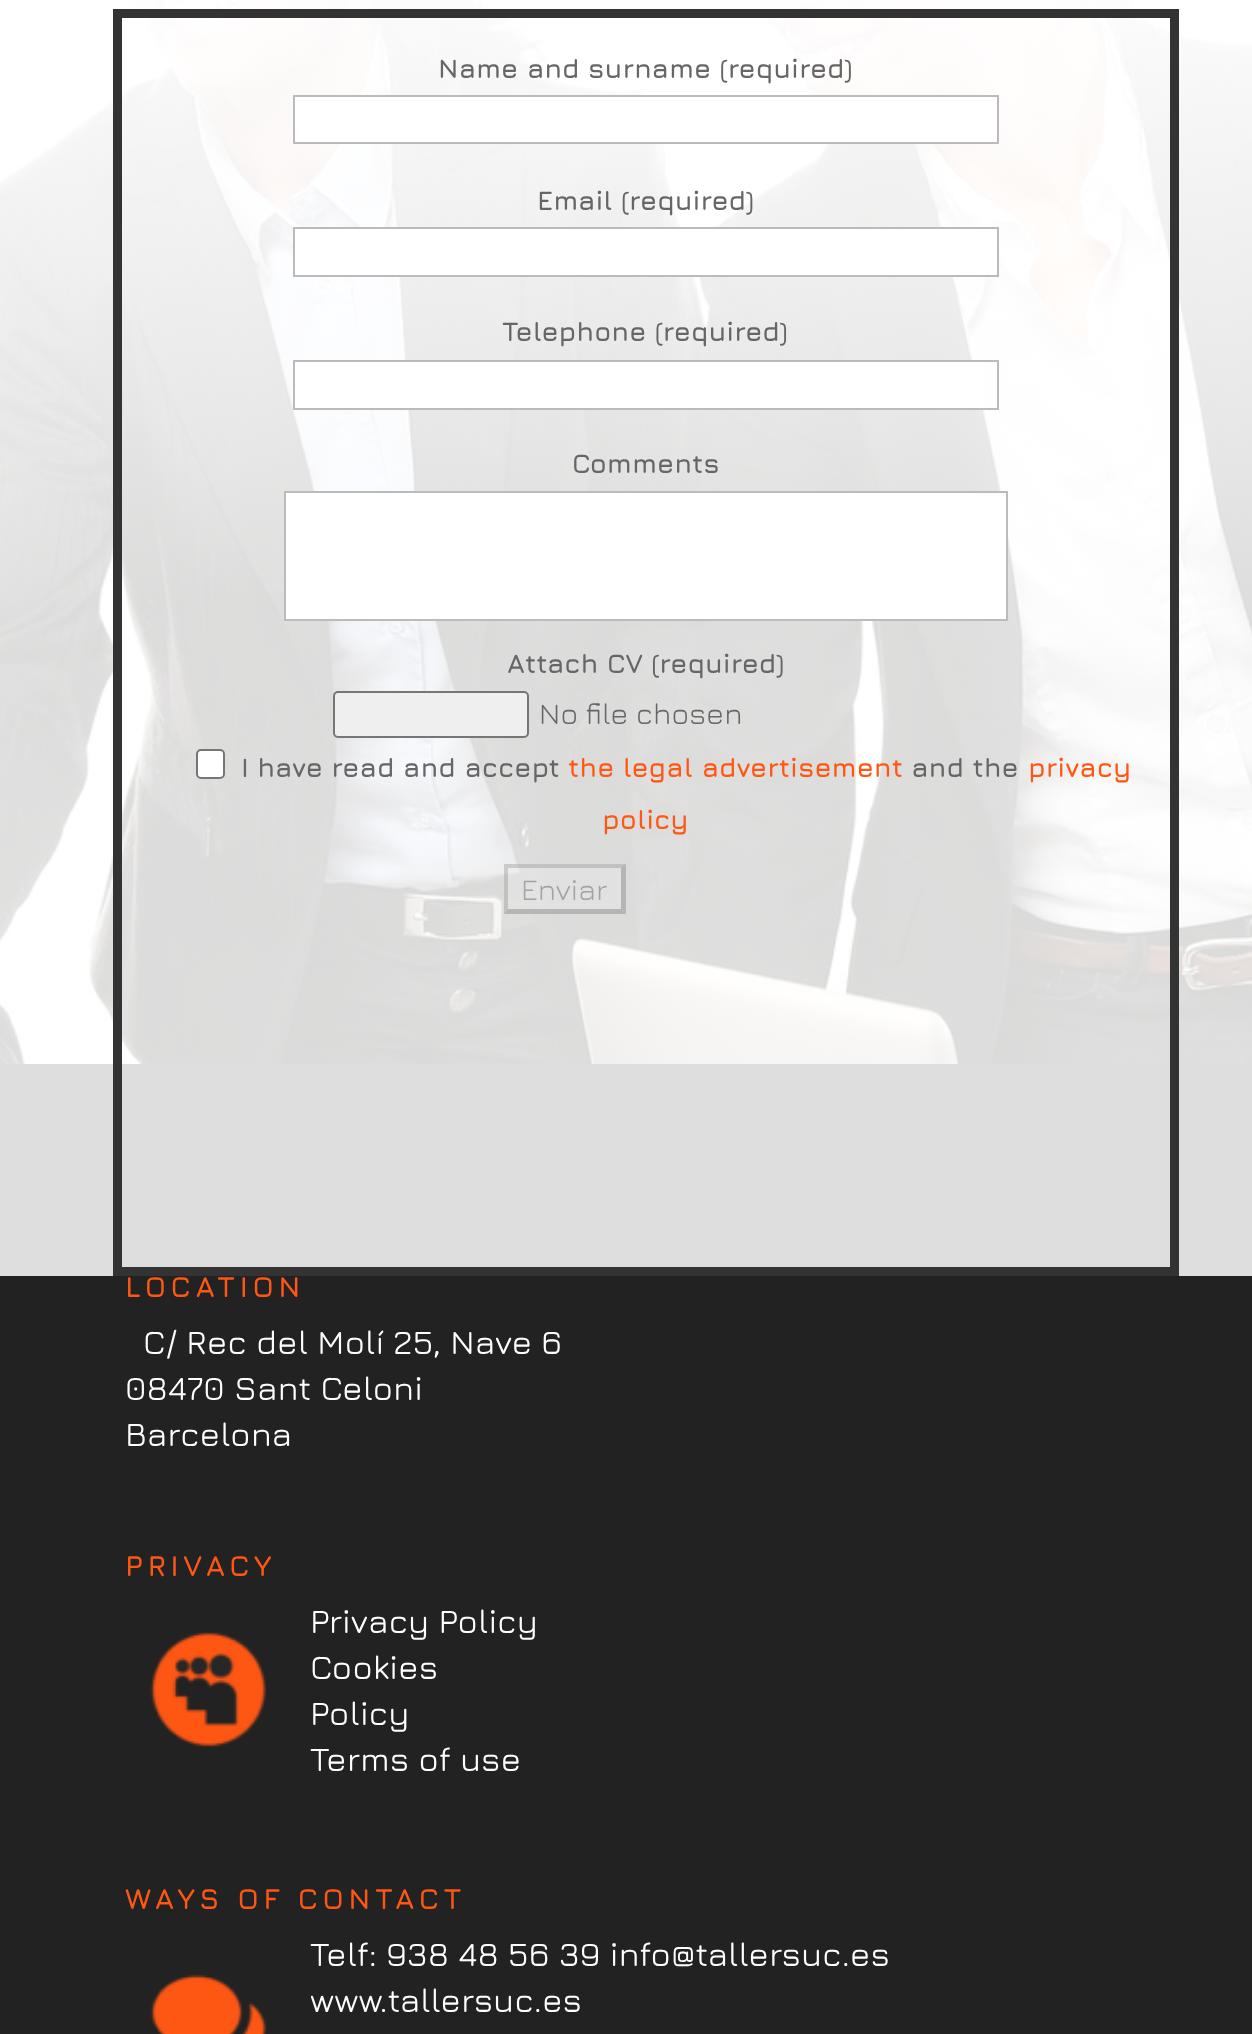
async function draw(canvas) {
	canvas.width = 1252;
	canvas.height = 2034;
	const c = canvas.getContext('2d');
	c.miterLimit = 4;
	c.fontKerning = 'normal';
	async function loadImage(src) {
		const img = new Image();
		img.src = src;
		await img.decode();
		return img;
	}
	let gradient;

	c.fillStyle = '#222';
	c.fillRect(0, 0, 1252, 2034);
	c.drawImage(await loadImage('img1.png'), 0, 0, 1252, 1064);
	gradient = c.createLinearGradient(627, -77, 627, 1276);
	gradient.addColorStop(0, '#fff');
	gradient.addColorStop(0.5, '#ffffffd9');
	c.fillStyle = gradient;
	c.fillRect(0, 0, 1252, 1276);
	c.strokeStyle = '#333';
	c.lineWidth = 9;
	c.strokeRect(117.5, 13.5, 1057, 1258);
	c.font = '300 27px Jura';
	c.fillStyle = '#666';
	c.fillText('Name and surname (required)', 438, 78);
	c.fillStyle = '#fff';
	c.beginPath();
	c.rect(294, 96, 704, 47);
	c.fill();
	c.strokeStyle = '#bbb';
	c.lineWidth = 2;
	c.stroke();
	c.fillStyle = '#666';
	c.fillText('Email (required)', 537, 210);
	c.fillStyle = '#fff';
	c.beginPath();
	c.rect(294, 228, 704, 48);
	c.fill();
	c.stroke();
	c.fillStyle = '#666';
	c.fillText('Telephone (required)', 502, 341);
	c.fillStyle = '#fff';
	c.fillRect(295, 362, 689, 46);
	c.strokeRect(294, 361, 704, 48);
	c.fillStyle = '#666';
	c.fillText('Comments', 572, 473);
	c.fillStyle = '#fff';
	c.beginPath();
	c.rect(285, 492, 722, 128);
	c.fill();
	c.stroke();
	c.fillStyle = '#666';
	c.fillText('Attach CV (required)', 507, 673);
	c.fillStyle = '#efefef';
	c.beginPath();
	c.roundRect(334, 692, 194, 45, 4);
	c.fill();
	c.strokeStyle = '#767676';
	c.stroke();
	c.font = '300 30px "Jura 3"';
	c.fillStyle = '#666';
	c.fillText('No file chosen', 539, 724);
	c.fillStyle = '#fff';
	c.beginPath();
	c.roundRect(197, 750, 27, 28, 4);
	c.fill();
	c.stroke();
	c.font = '300 27px Jura';
	c.fillStyle = '#666';
	c.fillText('I have read and accept', 241, 777);
	c.fillStyle = '#fe5714';
	c.fillText('the legal advertisement', 568, 777);
	c.fillStyle = '#666';
	c.fillText('and the', 911, 777);
	c.fillStyle = '#fe5714';
	c.fillText('privacy', 1028, 777);
	c.fillText('policy', 602, 829);
	c.fillStyle = '#efefef4d';
	c.fillRect(504, 864, 122, 50);
	c.fillStyle = '#7676764d';
	c.beginPath();
	c.moveTo(504, 864);
	c.lineTo(626, 864);
	c.lineTo(621, 868);
	c.lineTo(508, 868);
	c.closePath();
	c.fill();
	c.fillStyle = '#4f4f4f4d';
	c.beginPath();
	c.moveTo(626, 864);
	c.lineTo(626, 914);
	c.lineTo(621, 909);
	c.lineTo(621, 868);
	c.closePath();
	c.fill();
	c.beginPath();
	c.moveTo(626, 914);
	c.lineTo(504, 914);
	c.lineTo(508, 909);
	c.lineTo(621, 909);
	c.closePath();
	c.fill();
	c.fillStyle = '#7676764d';
	c.beginPath();
	c.moveTo(504, 914);
	c.lineTo(504, 864);
	c.lineTo(508, 868);
	c.lineTo(508, 909);
	c.closePath();
	c.fill();
	c.font = '300 30px "Jura 3"';
	c.fillStyle = '#a3a3a3';
	c.fillText('Enviar', 521, 900);
	c.letterSpacing = '4.5px';
	c.font = '300 29.25px Jura';
	c.fillStyle = '#fe5714';
	c.fillText('LOCATION', 125, 1297);
	c.letterSpacing = '0px';
	c.font = '300 33.75px "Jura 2"';
	c.fillStyle = '#fff';
	for (const [text, x, y] of [
		['C/ Rec del Molí 25, Nave 6', 143, 1354],
		['08470 Sant Celoni', 125, 1400],
		['Barcelona', 125, 1446],
	]) {
		c.fillText(text, x, y);
	}
	c.letterSpacing = '4.5px';
	c.font = '300 29.25px Jura';
	c.fillStyle = '#fe5714';
	c.fillText('PRIVACY', 125, 1576);
	c.letterSpacing = '0px';
	c.font = '300 33.75px "Jura 2"';
	c.fillStyle = '#fff';
	c.fillText('Privacy Policy', 310, 1633);
	c.drawImage(await loadImage('img2.png'), 150, 1632, 117, 115);
	for (const [text, x, y] of [
		['Cookies', 310, 1679],
		['Policy', 310, 1725],
		['Terms of use', 310, 1771],
	]) {
		c.fillText(text, x, y);
	}
	c.letterSpacing = '4.5px';
	c.font = '300 29.25px Jura';
	c.fillStyle = '#fe5714';
	c.fillText('WAYS OF CONTACT', 125, 1909);
	c.letterSpacing = '0px';
	c.font = '300 33.75px "Jura 2"';
	c.fillStyle = '#fff';
	c.fillText('Telf: 938 48 56 39 info@tallersuc.es', 310, 1966);
	c.drawImage(await loadImage('img3.png'), 150, 1974, 117, 60);
	c.fillText('www.tallersuc.es', 310, 2012);
}

draw(document.querySelector('canvas'));
